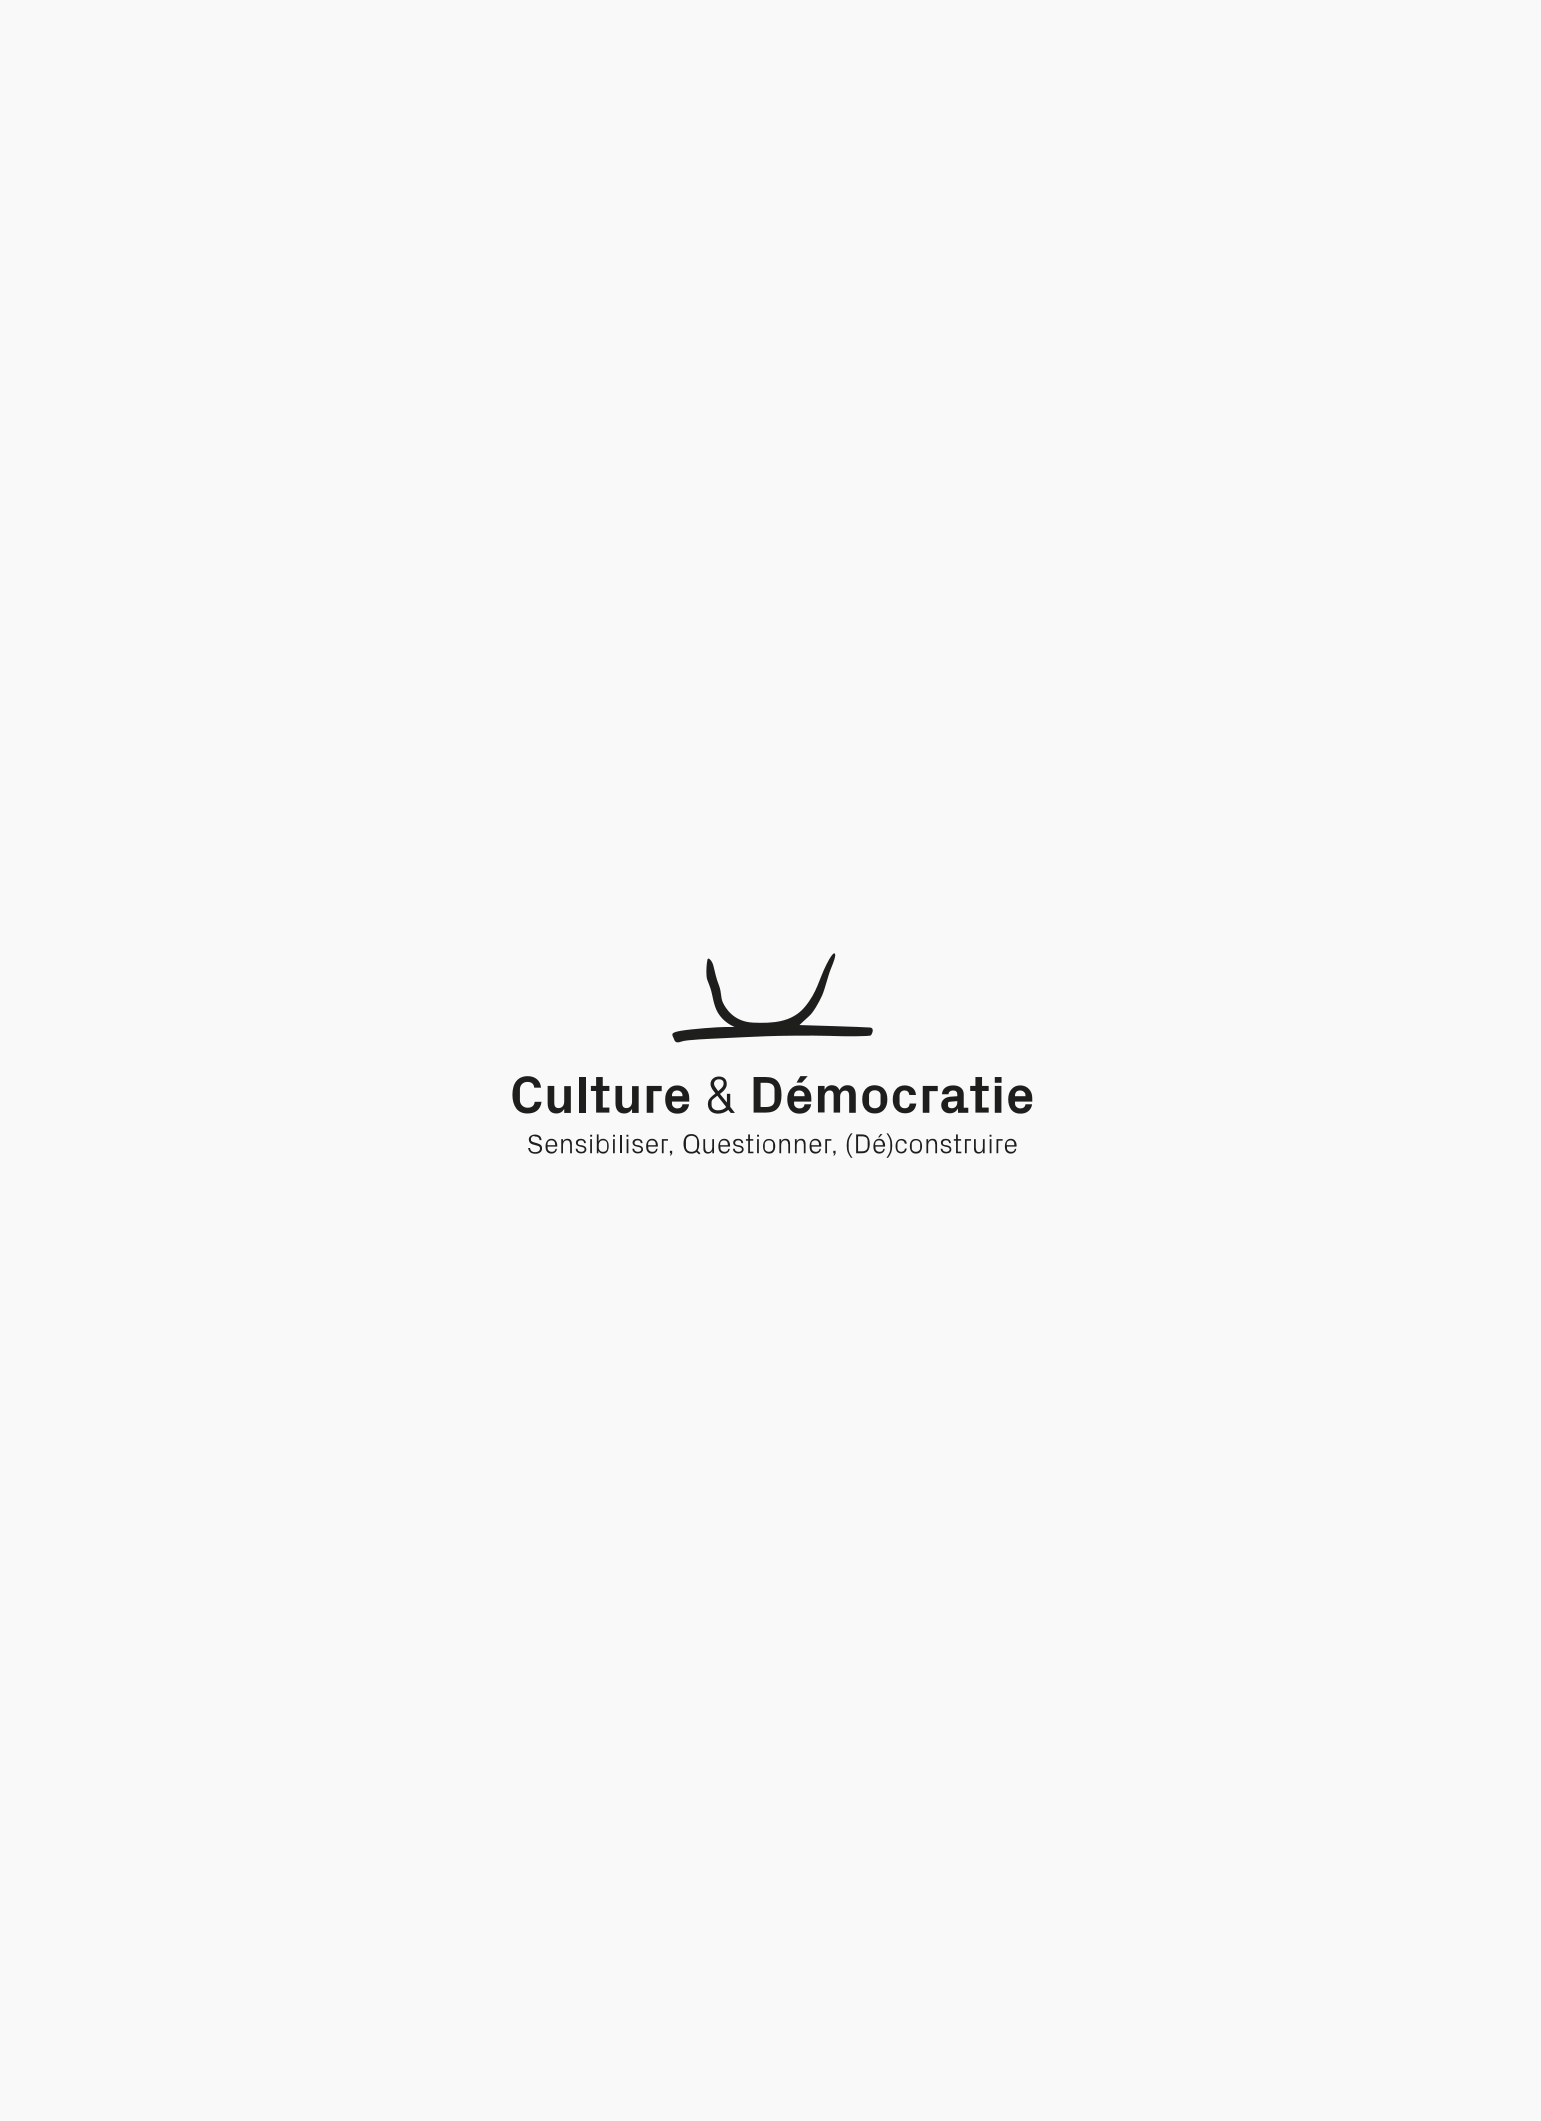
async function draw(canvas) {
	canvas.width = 1541;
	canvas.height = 2121;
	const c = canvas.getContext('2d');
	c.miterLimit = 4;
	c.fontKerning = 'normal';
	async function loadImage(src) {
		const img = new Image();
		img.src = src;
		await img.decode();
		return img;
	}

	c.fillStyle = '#f9f9f9';
	c.fillRect(0, 0, 1541, 2121);
	c.drawImage(await loadImage('img1.png'), 512, 953, 521, 205);
}

draw(document.querySelector('canvas'));
